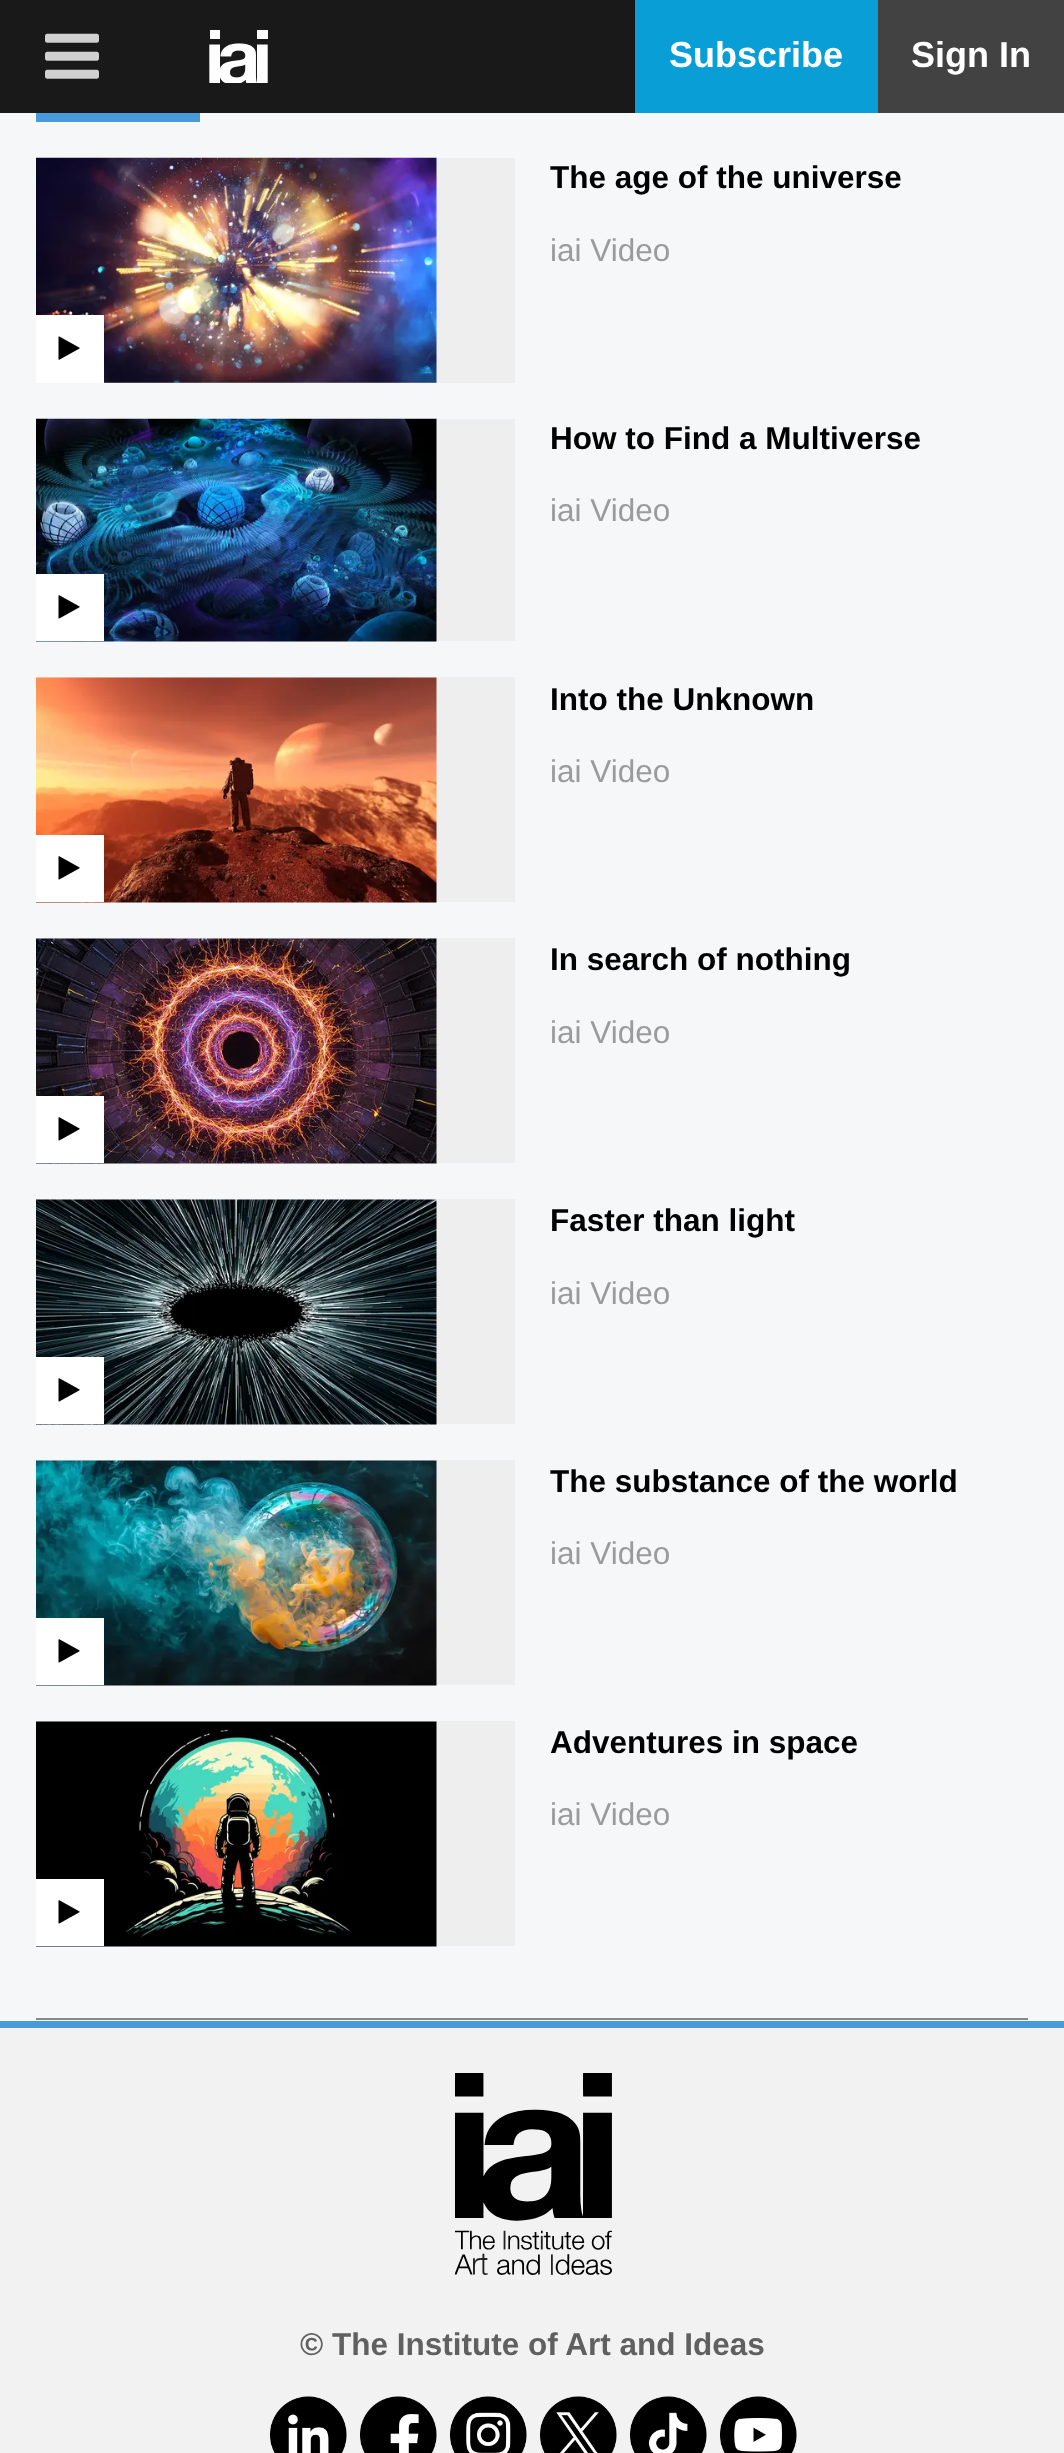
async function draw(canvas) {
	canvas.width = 1064;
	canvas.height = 2453;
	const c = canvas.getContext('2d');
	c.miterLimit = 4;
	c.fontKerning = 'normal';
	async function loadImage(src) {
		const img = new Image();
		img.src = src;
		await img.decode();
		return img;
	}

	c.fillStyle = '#f5f7f8';
	c.fillRect(0, 0, 1064, 2453);
	c.fillStyle = '#191919';
	c.fillRect(0, 0, 635, 113);
	c.drawImage(await loadImage('img1.png'), 45, 33, 54, 46);
	c.drawImage(await loadImage('img2.png'), 209, 30, 59, 53);
	c.fillStyle = '#099ed6';
	c.fillRect(635, 0, 243, 113);
	c.font = 'bold 36px Liberation Sans';
	c.fillStyle = '#fff';
	c.fillText('Subscribe', 669, 67);
	c.fillStyle = '#424242';
	c.fillRect(878, 0, 186, 113);
	c.fillStyle = '#fff';
	c.fillText('Sign In', 911, 67);
	for (const [x, y, w, h, color] of [
		[36, 2018, 992, 2, '#888'],
		[36, 113, 164, 9, '#479bda'],
		[104, 158, 411, 225, '#eee'],
	]) {
		c.fillStyle = color;
		c.fillRect(x, y, w, h);
	}
	c.drawImage(await loadImage('img3.png'), 36, 157, 401, 226);
	c.fillStyle = '#fff';
	c.fillRect(36, 315, 68, 68);
	c.drawImage(await loadImage('img4.png'), 58, 336, 22, 24);
	c.font = 'bold 31.5px Liberation Sans';
	c.fillStyle = '#000';
	c.fillText('The age of the universe', 550, 188);
	c.font = '31.5px Liberation Sans';
	c.fillStyle = '#9c9b9b';
	c.fillText('iai Video', 550, 261);
	c.fillStyle = '#eee';
	c.fillRect(436, 419, 79, 222);
	c.drawImage(await loadImage('img5.png'), 36, 418, 401, 224);
	c.fillStyle = '#fff';
	c.fillRect(36, 574, 68, 67);
	c.drawImage(await loadImage('img6.png'), 58, 595, 22, 24);
	c.font = 'bold 31.5px Liberation Sans';
	c.fillStyle = '#000';
	c.fillText('How to Find a Multiverse', 550, 449);
	c.font = '31.5px Liberation Sans';
	c.fillStyle = '#9c9b9b';
	c.fillText('iai Video', 550, 521);
	c.fillStyle = '#eee';
	c.fillRect(36, 677, 479, 225);
	c.drawImage(await loadImage('img7.png'), 36, 677, 401, 226);
	c.fillStyle = '#fff';
	c.fillRect(36, 835, 68, 67);
	c.drawImage(await loadImage('img6.png'), 58, 856, 22, 24);
	c.font = 'bold 31.5px Liberation Sans';
	c.fillStyle = '#000';
	c.fillText('Into the Unknown', 550, 710);
	c.font = '31.5px Liberation Sans';
	c.fillStyle = '#9c9b9b';
	c.fillText('iai Video', 550, 782);
	c.fillStyle = '#eee';
	c.fillRect(36, 938, 479, 225);
	c.drawImage(await loadImage('img8.png'), 36, 938, 401, 226);
	c.fillStyle = '#fff';
	c.fillRect(36, 1096, 68, 67);
	c.drawImage(await loadImage('img6.png'), 58, 1117, 22, 24);
	c.font = 'bold 31.5px Liberation Sans';
	c.fillStyle = '#000';
	c.fillText('In search of nothing', 550, 970);
	c.font = '31.5px Liberation Sans';
	c.fillStyle = '#9c9b9b';
	c.fillText('iai Video', 550, 1043);
	c.fillStyle = '#eee';
	c.fillRect(36, 1199, 479, 225);
	c.drawImage(await loadImage('img9.png'), 36, 1199, 401, 226);
	c.fillStyle = '#fff';
	c.fillRect(36, 1357, 68, 67);
	c.drawImage(await loadImage('img6.png'), 58, 1378, 22, 24);
	c.font = 'bold 31.5px Liberation Sans';
	c.fillStyle = '#000';
	c.fillText('Faster than light', 550, 1231);
	c.font = '31.5px Liberation Sans';
	c.fillStyle = '#9c9b9b';
	c.fillText('iai Video', 550, 1304);
	c.fillStyle = '#eee';
	c.fillRect(36, 1460, 479, 225);
	c.drawImage(await loadImage('img10.png'), 36, 1460, 401, 226);
	c.fillStyle = '#fff';
	c.fillRect(36, 1618, 68, 67);
	c.drawImage(await loadImage('img6.png'), 58, 1639, 22, 24);
	c.font = 'bold 31.5px Liberation Sans';
	c.fillStyle = '#000';
	c.fillText('The substance of the world', 550, 1492);
	c.font = '31.5px Liberation Sans';
	c.fillStyle = '#9c9b9b';
	c.fillText('iai Video', 550, 1564);
	c.fillStyle = '#eee';
	c.fillRect(36, 1721, 479, 225);
	c.drawImage(await loadImage('img11.png'), 36, 1721, 401, 226);
	c.fillStyle = '#fff';
	c.fillRect(36, 1879, 68, 67);
	c.drawImage(await loadImage('img6.png'), 58, 1900, 22, 24);
	c.font = 'bold 31.5px Liberation Sans';
	c.fillStyle = '#000';
	c.fillText('Adventures in space', 550, 1753);
	c.font = '31.5px Liberation Sans';
	c.fillStyle = '#9c9b9b';
	c.fillText('iai Video', 550, 1825);
	c.fillStyle = '#f2f2f2';
	c.fillRect(0, 2028, 1064, 425);
	c.fillStyle = '#479bda';
	c.fillRect(0, 2021, 1064, 7);
	c.drawImage(await loadImage('img12.png'), 455, 2073, 157, 202);
	c.font = 'bold 31.5px Liberation Sans';
	c.fillStyle = '#606060';
	c.fillText('© The Institute of Art and Ideas', 300, 2355);
	c.fillStyle = '#fff';
	c.beginPath();
	c.arc(308.5, 2434.5, 38.5, 0, 2 * Math.PI);
	c.fill();
	c.drawImage(await loadImage('img13.png'), 270, 2396, 77, 57);
	c.beginPath();
	c.arc(398.5, 2434.5, 38.5, 0, 2 * Math.PI);
	c.fill();
	c.drawImage(await loadImage('img14.png'), 360, 2396, 77, 57);
	c.beginPath();
	c.arc(488.5, 2434.5, 38.5, 0, 2 * Math.PI);
	c.fill();
	c.drawImage(await loadImage('img15.png'), 450, 2396, 77, 57);
	c.beginPath();
	c.arc(578.5, 2434.5, 38.5, 0, 2 * Math.PI);
	c.fill();
	c.drawImage(await loadImage('img16.png'), 540, 2396, 77, 57);
	c.beginPath();
	c.arc(668.5, 2434.5, 38.5, 0, 2 * Math.PI);
	c.fill();
	c.drawImage(await loadImage('img17.png'), 630, 2396, 77, 57);
	c.beginPath();
	c.arc(758.5, 2434.5, 38.5, 0, 2 * Math.PI);
	c.fill();
	c.drawImage(await loadImage('img18.png'), 720, 2396, 77, 57);
}

draw(document.querySelector('canvas'));
